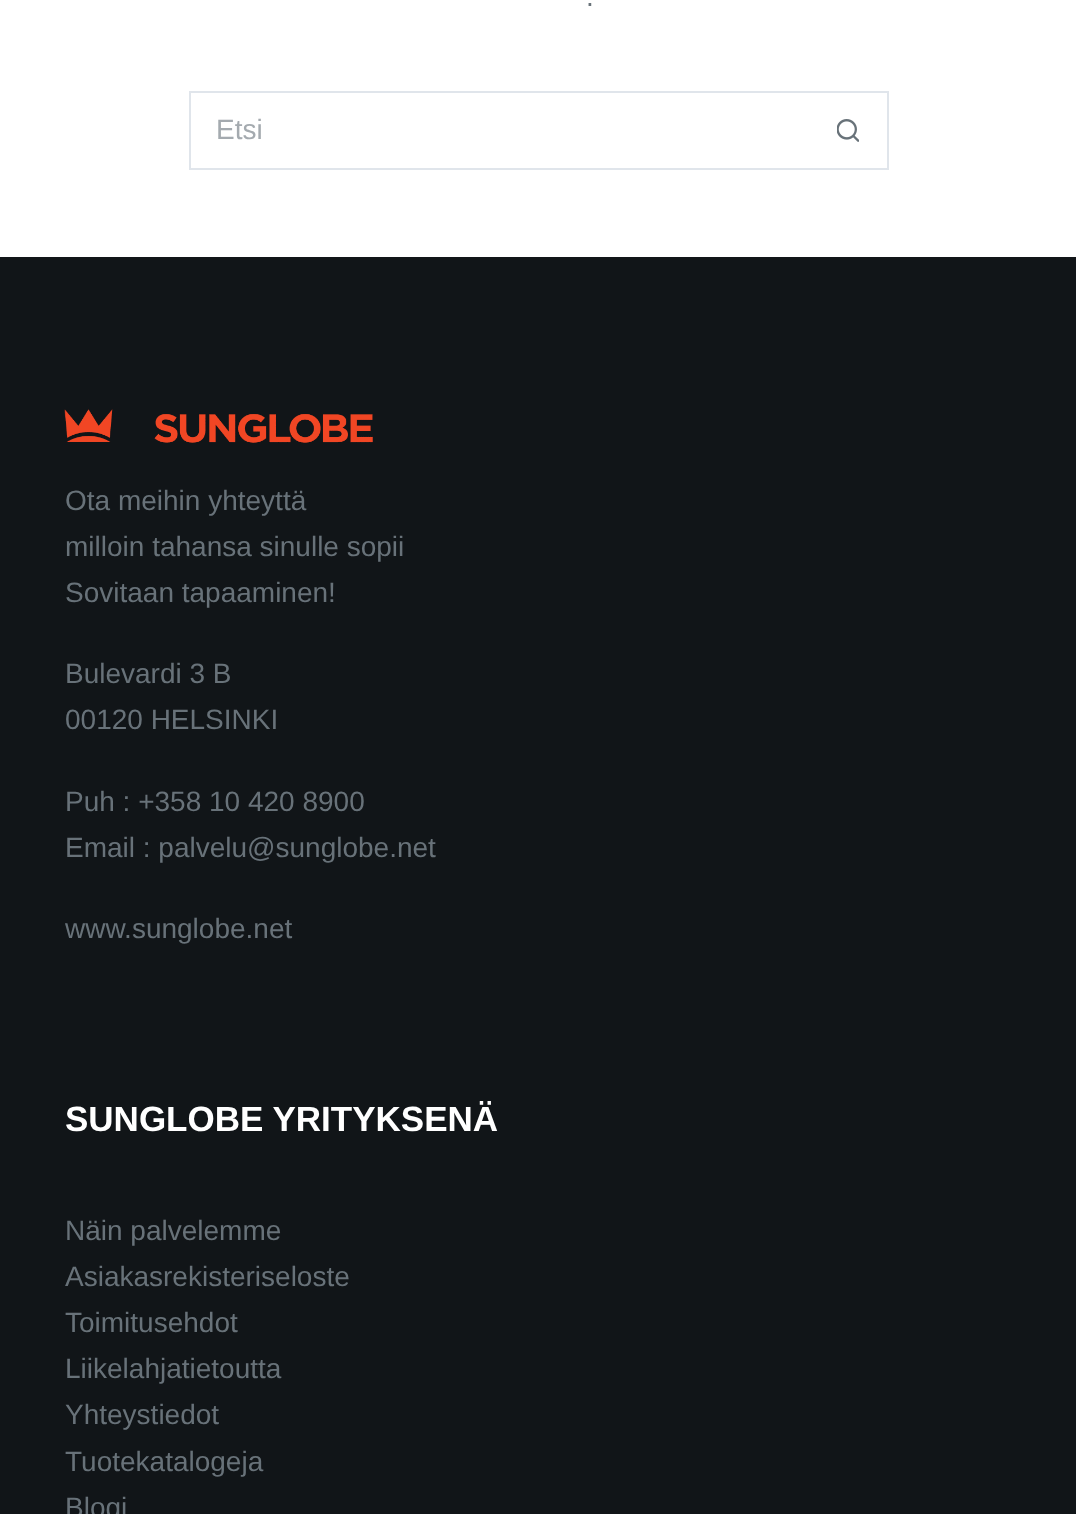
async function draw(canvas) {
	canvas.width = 1076;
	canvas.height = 1514;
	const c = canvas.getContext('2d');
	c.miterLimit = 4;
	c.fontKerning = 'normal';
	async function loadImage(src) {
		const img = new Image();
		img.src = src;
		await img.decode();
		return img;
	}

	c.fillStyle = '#fff';
	c.fillRect(0, 0, 1076, 1514);
	c.font = '28px Liberation Sans';
	c.fillStyle = '#687279';
	c.fillText('.', 586, 6);
	for (const [x, y, w, h, color] of [
		[189, 91, 700, 2, '#e0e5eb'],
		[189, 168, 621, 2, '#e0e5eb'],
		[189, 91, 2, 79, '#e0e5eb'],
	]) {
		c.fillStyle = color;
		c.fillRect(x, y, w, h);
	}
	c.fillStyle = '#a4aaaf';
	c.fillText('Etsi', 216, 139);
	c.fillStyle = '#e0e5eb';
	c.fillRect(887, 91, 2, 79);
	c.fillRect(810, 168, 79, 2);
	c.drawImage(await loadImage('img1.png'), 837, 119, 22, 23);
	c.fillStyle = '#111518';
	c.fillRect(0, 257, 1076, 1257);
	c.drawImage(await loadImage('img2.png'), 64, 409, 309, 34);
	c.fillStyle = '#687279';
	for (const [text, x, y] of [
		['Ota meihin yhteyttä', 65, 510],
		['milloin tahansa sinulle sopii', 65, 556],
		['Sovitaan tapaaminen!', 65, 602],
		['Bulevardi 3 B', 65, 683],
		['00120 HELSINKI', 65, 729],
		['Puh : +358 10 420 8900', 65, 811],
		['Email : palvelu@sunglobe.net', 65, 857],
		['www.sunglobe.net', 65, 938],
	]) {
		c.fillText(text, x, y);
	}
	c.font = 'bold 35px Liberation Sans';
	c.fillStyle = '#fff';
	c.fillText('SUNGLOBE YRITYKSENÄ', 65, 1131);
	c.font = '28px Liberation Sans';
	c.fillStyle = '#687279';
	for (const [text, x, y] of [
		['Näin palvelemme', 65, 1240],
		['Asiakasrekisteriseloste', 65, 1286],
		['Toimitusehdot', 65, 1332],
		['Liikelahjatietoutta', 65, 1378],
		['Yhteystiedot', 65, 1424],
		['Tuotekatalogeja', 65, 1471],
		['Blogi', 65, 1517],
	]) {
		c.fillText(text, x, y);
	}
}

draw(document.querySelector('canvas'));
